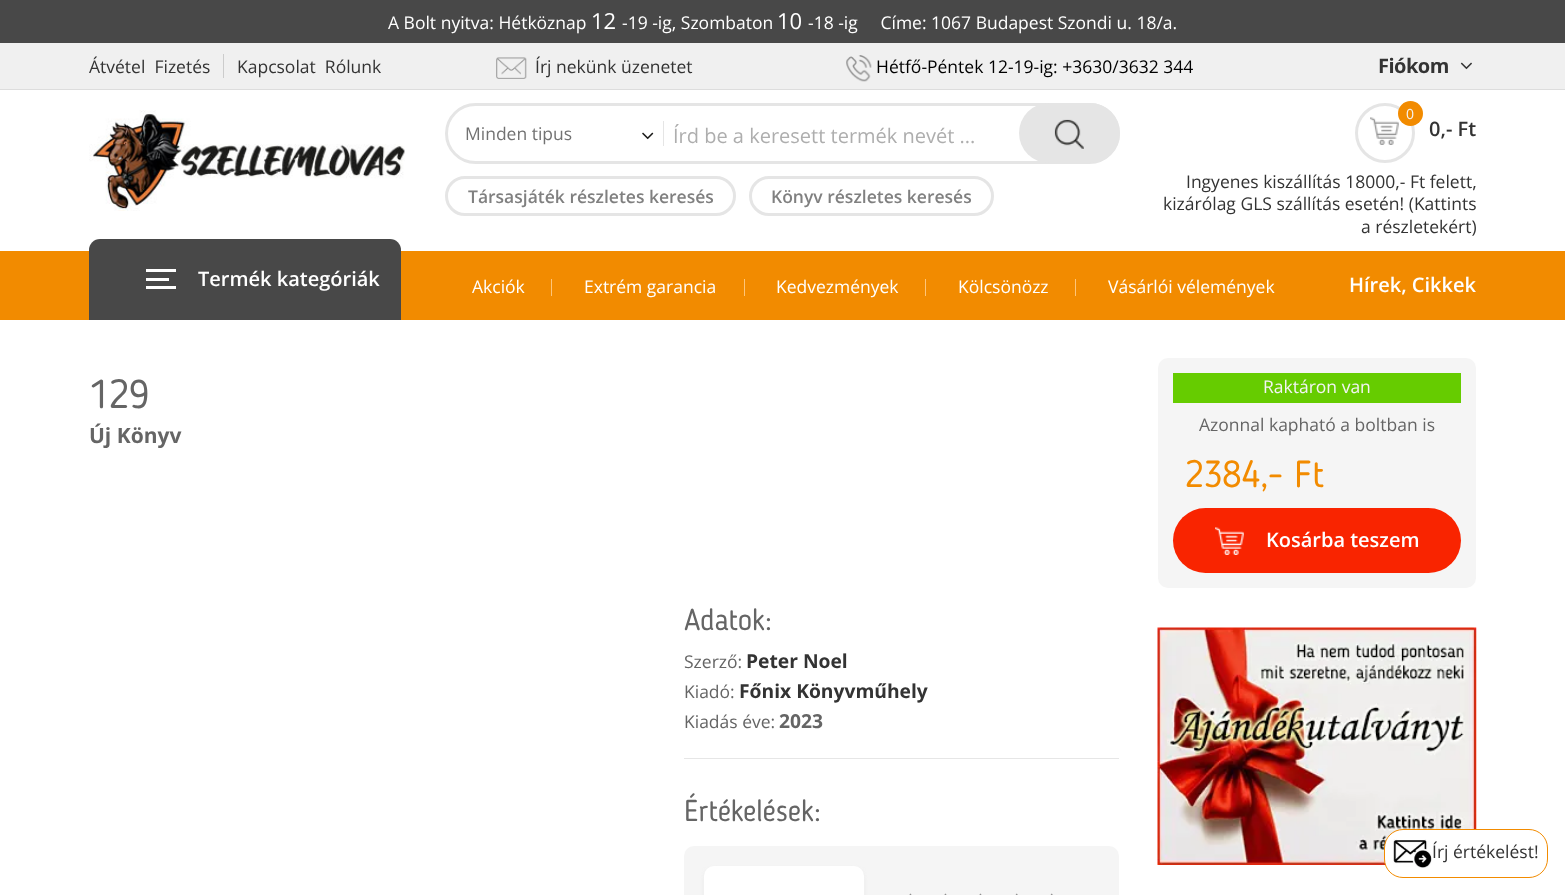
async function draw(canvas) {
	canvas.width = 1565;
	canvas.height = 895;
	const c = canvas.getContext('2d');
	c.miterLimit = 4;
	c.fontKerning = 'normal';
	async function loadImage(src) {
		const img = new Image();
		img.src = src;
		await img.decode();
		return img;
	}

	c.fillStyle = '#fff';
	c.fillRect(0, 0, 1565, 895);
	c.fillStyle = '#484848';
	c.fillRect(0, 0, 1565, 43);
	c.font = '17.5px Open Sans';
	c.fillStyle = '#fff';
	c.fillText('A Bolt nyitva: Hétköznap', 388, 29);
	c.font = '22px Open Sans';
	c.fillText('12', 591, 29);
	c.font = '17.5px Open Sans';
	c.fillText('-19 -ig, Szombaton', 622, 29);
	c.font = '22px Open Sans';
	c.fillText('10', 777, 29);
	c.font = '17.5px Open Sans';
	c.fillText('-18 -ig     Címe: 1067 Budapest Szondi u. 18/a.', 808, 29);
	c.fillStyle = '#f0f0f0';
	c.fillRect(0, 43, 1565, 46);
	c.fillStyle = '#ddd';
	c.fillRect(0, 89, 1565, 1);
	c.fillStyle = '#333';
	c.fillText('Átvétel  Fizetés', 89, 73);
	c.fillStyle = '#ccc';
	c.fillRect(223, 54, 1, 24);
	c.fillStyle = '#333';
	c.fillText('Kapcsolat  Rólunk', 237, 73);
	c.drawImage(await loadImage('img1.png'), 496, 57, 31, 22);
	c.fillText('Írj nekünk üzenetet', 535, 73);
	c.drawImage(await loadImage('img2.png'), 846, 55, 26, 27);
	c.fillStyle = '#000';
	c.fillText('Hétfő-Péntek 12-19-ig: +3630/3632 344', 876, 73);
	c.letterSpacing = '-0.5px';
	c.font = 'bold 20px Open Sans';
	c.fillStyle = '#333';
	c.fillText('Fiókom', 1378, 73);
	c.drawImage(await loadImage('img3.png'), 1460, 62, 12, 8);
	c.drawImage(await loadImage('img4.png'), 89, 110, 316, 101);
	c.beginPath();
	c.roundRect(446.5, 104.5, 672, 58, 29);
	c.strokeStyle = '#e5e5e5';
	c.lineWidth = 3;
	c.stroke();
	c.fillStyle = '#e5e5e5';
	c.fillRect(663, 121, 1, 25);
	c.letterSpacing = '0px';
	c.font = '17.5px Open Sans';
	c.fillStyle = '#727272';
	c.fillText('Minden tipus', 465, 140);
	c.drawImage(await loadImage('img5.png'), 642, 132, 12, 8);
	c.font = '20px Open Sans';
	c.fillStyle = '#aeaeae';
	c.fillText('Írd be a keresett termék nevét ...', 673, 143);
	c.fillStyle = '#e5e5e5';
	c.beginPath();
	c.roundRect(1019, 103, 101, 60, 30);
	c.fill();
	c.drawImage(await loadImage('img6.png'), 1054, 119, 30, 30);
	c.beginPath();
	c.roundRect(446.5, 177.5, 288, 37, 18.5);
	c.stroke();
	c.font = '600 17.5px Open Sans';
	c.fillStyle = '#808080';
	c.fillText('Társasjáték részletes keresés', 468, 203);
	c.beginPath();
	c.roundRect(750.5, 177.5, 242, 37, 18.5);
	c.stroke();
	c.fillText('Könyv részletes keresés', 771, 203);
	c.beginPath();
	c.arc(1385, 133, 28.5, 0, 2 * Math.PI);
	c.stroke();
	c.drawImage(await loadImage('img7.png'), 1370, 117, 29, 28);
	c.fillStyle = '#f28b00';
	c.beginPath();
	c.arc(1410.5, 113.5, 12.5, 0, 2 * Math.PI);
	c.fill();
	c.font = '14px Open Sans';
	c.fillStyle = '#f4f4f4';
	c.fillText('0', 1406, 119);
	c.font = '600 20px Open Sans';
	c.fillStyle = '#333';
	c.fillText('0,- Ft', 1429, 136);
	c.font = '17.5px Open Sans';
	for (const [text, x, y] of [
		['Ingyenes kiszállítás 18000,- Ft felett,', 1186, 188],
		['kizárólag GLS szállítás esetén! (Kattints', 1163, 210],
		['a részletekért)', 1361, 233],
	]) {
		c.fillText(text, x, y);
	}
	c.fillStyle = '#f28b00';
	c.fillRect(0, 251, 1565, 69);
	c.fillStyle = '#484848';
	c.beginPath();
	c.roundRect(89, 239, 312, 81, [11, 11, 0, 0]);
	c.fill();
	for (const [x, y, w, h, color] of [
		[146, 278, 23, 3, '#fff'],
		[146, 269, 30, 3, '#fff'],
		[146, 286, 30, 3, '#fff'],
	]) {
		c.fillStyle = color;
		c.fillRect(x, y, w, h);
	}
	c.font = '600 20px Open Sans';
	c.fillText('Termék kategóriák', 198, 286);
	c.fillStyle = '#fec579';
	c.fillRect(551, 279, 1, 17);
	c.font = '17.5px Open Sans';
	c.fillStyle = '#fff';
	c.fillText('Akciók', 472, 293);
	c.fillStyle = '#fec579';
	c.fillRect(744, 279, 1, 17);
	c.fillStyle = '#fff';
	c.fillText('Extrém garancia', 584, 293);
	c.fillStyle = '#fec579';
	c.fillRect(925, 279, 1, 17);
	c.fillStyle = '#fff';
	c.fillText('Kedvezmények', 776, 293);
	c.fillStyle = '#fec579';
	c.fillRect(1075, 279, 1, 17);
	c.fillStyle = '#fff';
	c.fillText('Kölcsönözz', 958, 293);
	c.fillText('Vásárlói vélemények', 1108, 293);
	c.font = '600 20px Open Sans';
	c.fillText('Hírek, Cikkek', 1349, 292);
	c.font = '200 40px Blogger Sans';
	c.fillStyle = '#656565';
	c.fillText('129', 89, 408);
	c.font = 'bold 21px Open Sans';
	c.fillText('Új Könyv', 89, 443);
	c.fillStyle = '#f5f5f5';
	c.beginPath();
	c.roundRect(1158, 358, 318, 230, 10);
	c.fill();
	c.fillStyle = '#6c0';
	c.fillRect(1173, 373, 288, 30);
	c.font = '17.5px Open Sans';
	c.fillStyle = '#f4f4f4';
	c.fillText('Raktáron van', 1263, 393);
	c.fillStyle = '#656565';
	c.fillText('Azonnal kapható a boltban is', 1199, 431);
	c.font = '200 37.5px Blogger Sans';
	c.fillStyle = '#f28b00';
	c.fillText('2384,- Ft', 1185, 487);
	c.fillStyle = '#f92400';
	c.beginPath();
	c.roundRect(1173, 508, 288, 65, 32.5);
	c.fill();
	c.drawImage(await loadImage('img8.png'), 1215, 527, 29, 28);
	c.font = '600 20px Open Sans';
	c.fillStyle = '#fff';
	c.fillText('Kosárba teszem', 1266, 547);
	c.font = '200 30px Blogger Sans';
	c.fillStyle = '#656565';
	c.fillText('Adatok:', 684, 630);
	c.font = '17.5px Open Sans';
	c.fillText('Szerző:', 684, 668);
	c.font = 'bold 19.25px Open Sans';
	c.fillStyle = '#333';
	c.fillText('Peter Noel', 746, 668);
	c.font = '17.5px Open Sans';
	c.fillStyle = '#656565';
	c.fillText('Kiadó:', 684, 698);
	c.font = 'bold 19.25px Open Sans';
	c.fillStyle = '#333';
	c.fillText('Főnix Könyvműhely', 739, 698);
	c.font = '17.5px Open Sans';
	c.fillStyle = '#656565';
	c.fillText('Kiadás éve:', 684, 728);
	c.font = 'bold 19.25px Open Sans';
	c.fillText('2023', 779, 728);
	c.fillStyle = '#e6e6e6';
	c.fillRect(684, 758, 435, 1);
	c.font = '200 30px Blogger Sans';
	c.fillStyle = '#656565';
	c.fillText('Értékelések:', 684, 821);
	c.fillStyle = '#f5f5f5';
	c.beginPath();
	c.roundRect(684, 846, 435, 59, 10);
	c.fill();
	c.fillStyle = '#eaeaea';
	c.filter = 'blur(2px)';
	c.beginPath();
	c.roundRect(704, 869, 160, 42, 10);
	c.fill();
	c.filter = 'none';
	c.fillStyle = '#fff';
	c.beginPath();
	c.roundRect(704, 866, 160, 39, 10);
	c.fill();
	c.drawImage(await loadImage('img9.png'), 909, 893, 3, 2);
	c.drawImage(await loadImage('img9.png'), 944, 893, 3, 2);
	c.drawImage(await loadImage('img9.png'), 979, 893, 3, 2);
	c.drawImage(await loadImage('img10.png'), 1015, 893, 3, 2);
	c.drawImage(await loadImage('img10.png'), 1050, 893, 3, 2);
	c.drawImage(await loadImage('img11.png'), 1157, 627, 320, 238);
	c.beginPath();
	c.roundRect(1384.5, 829.5, 163, 48, 18.5);
	c.fill();
	c.strokeStyle = '#f28b00';
	c.lineWidth = 1;
	c.stroke();
	c.drawImage(await loadImage('img12.png'), 1393, 839, 39, 29);
	c.font = '17.5px Open Sans';
	c.fillStyle = '#333';
	c.fillText('Írj értékelést!', 1432, 858);
}

draw(document.querySelector('canvas'));
